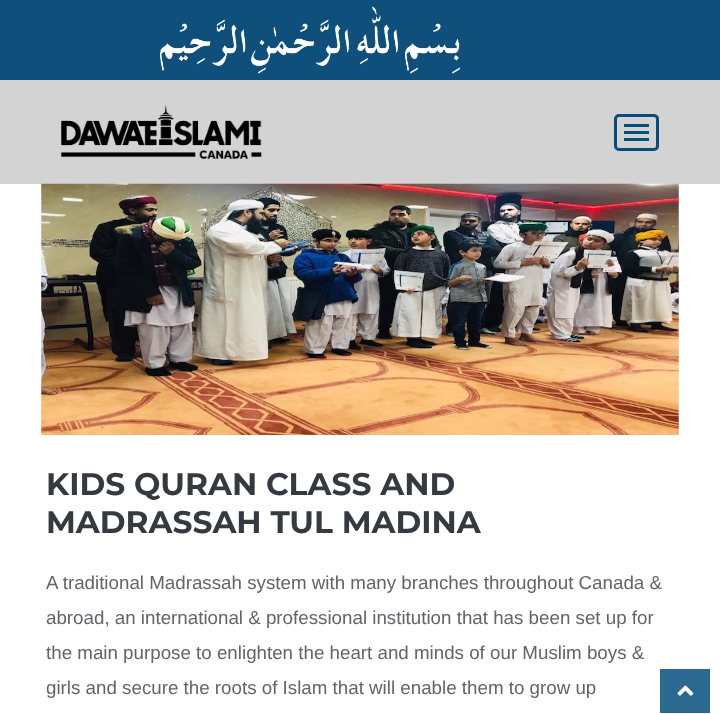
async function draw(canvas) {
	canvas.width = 720;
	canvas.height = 714;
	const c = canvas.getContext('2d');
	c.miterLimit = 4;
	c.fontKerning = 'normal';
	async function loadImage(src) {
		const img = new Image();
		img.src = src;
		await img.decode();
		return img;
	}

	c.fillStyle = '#fff';
	c.fillRect(0, 0, 720, 714);
	c.fillStyle = '#0f4f7b';
	c.fillRect(0, 0, 720, 80);
	c.drawImage(await loadImage('img1.png'), 160, 6, 300, 68);
	c.fillStyle = '#d3d3d3';
	c.fillRect(0, 80, 720, 104);
	c.drawImage(await loadImage('img2.png'), 61, 105, 201, 54);
	c.beginPath();
	c.roundRect(615.5, 115.5, 42, 34, 3.5);
	c.strokeStyle = '#064e7c';
	c.lineWidth = 3;
	c.stroke();
	for (const [x, y, w, h, color] of [
		[624, 124, 25, 3, '#064e7c'],
		[624, 131, 25, 3, '#064e7c'],
		[624, 138, 25, 3, '#064e7c'],
	]) {
		c.fillStyle = color;
		c.fillRect(x, y, w, h);
	}
	c.drawImage(await loadImage('img3.png'), 41, 183, 638, 252);
	c.font = 'bold 31.25px Montserrat';
	c.fillStyle = '#343a40';
	c.fillText('KIDS QURAN CLASS AND', 46, 495);
	c.fillText('MADRASSAH TUL MADINA', 46, 533);
	c.font = '18.75px Liberation Sans';
	c.fillStyle = '#63636b';
	for (const [text, x, y] of [
		['A traditional Madrassah system with many branches throughout Canada &', 46, 589],
		['abroad, an international & professional institution that has been set up for', 46, 624],
		['the main purpose to enlighten the heart and minds of our Muslim boys &', 46, 659],
		['girls and secure the roots of Islam that will enable them to grow up', 46, 694],
	]) {
		c.fillText(text, x, y);
	}
	c.fillStyle = '#2b6990';
	c.fillRect(660, 669, 50, 44);
	c.drawImage(await loadImage('img4.png'), 677, 685, 17, 11);
}

draw(document.querySelector('canvas'));
